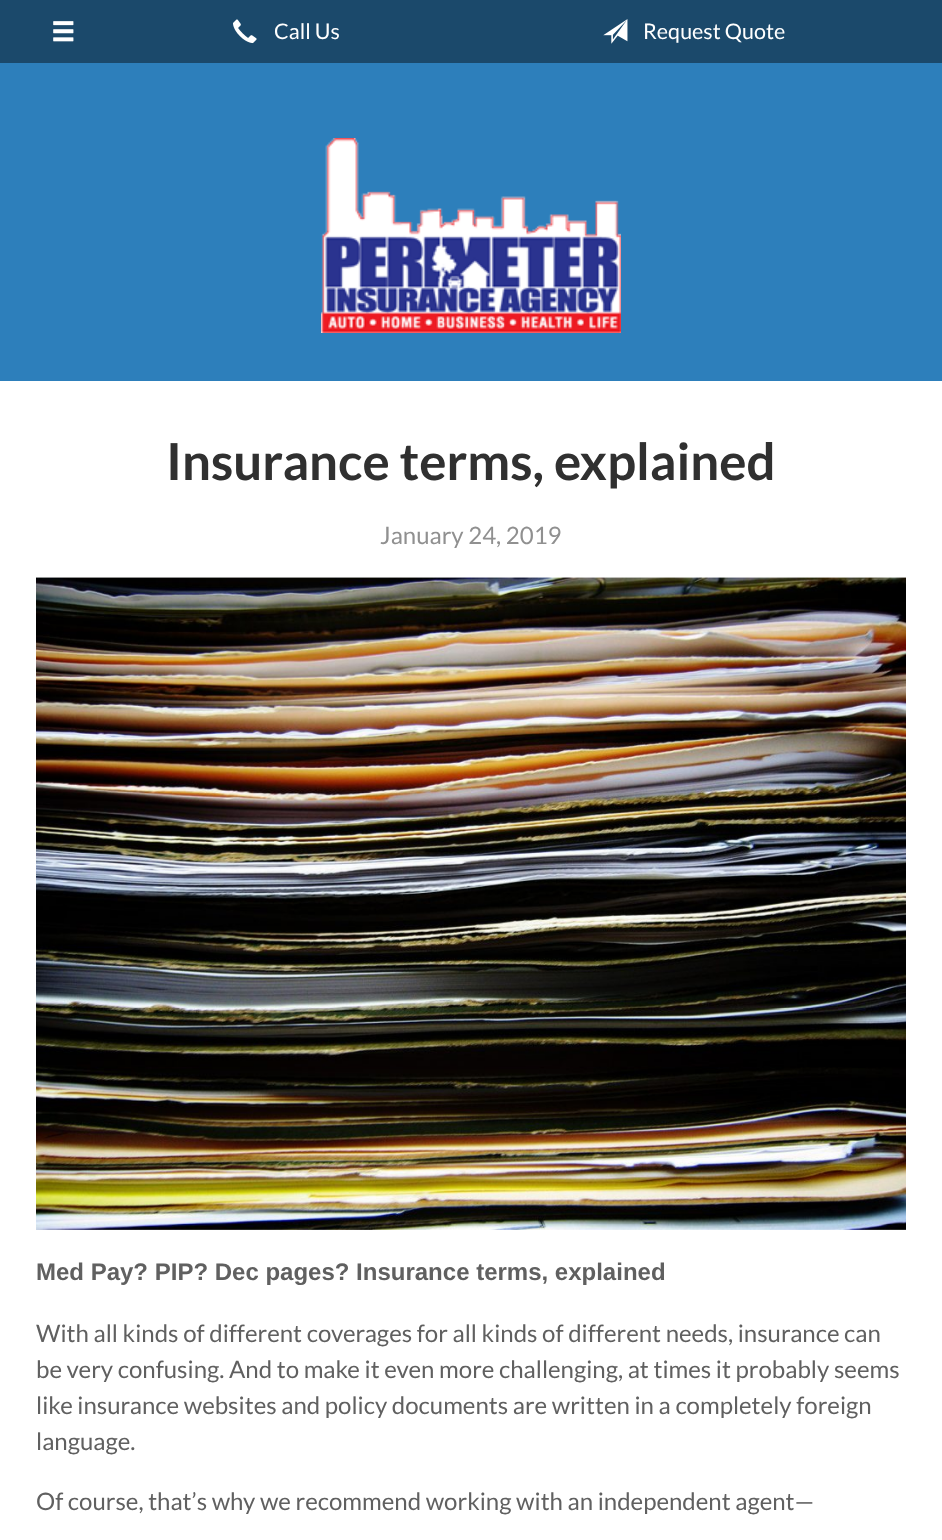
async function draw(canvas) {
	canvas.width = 942;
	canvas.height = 1540;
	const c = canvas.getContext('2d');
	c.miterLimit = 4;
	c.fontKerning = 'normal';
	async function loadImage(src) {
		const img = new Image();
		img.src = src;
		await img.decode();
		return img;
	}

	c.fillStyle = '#1b496b';
	c.fillRect(0, 0, 942, 1540);
	c.drawImage(await loadImage('img1.png'), 53, 21, 21, 21);
	c.drawImage(await loadImage('img2.png'), 233, 19, 24, 25);
	c.font = '21.5px Lato';
	c.fillStyle = '#fff';
	c.fillText('Call Us', 274, 39);
	c.drawImage(await loadImage('img3.png'), 603, 19, 25, 25);
	c.fillText('Request Quote', 643, 39);
	c.fillStyle = '#2d7fbb';
	c.fillRect(0, 63, 942, 318);
	c.drawImage(await loadImage('img4.png'), 321, 138, 300, 195);
	c.fillStyle = '#fff';
	c.fillRect(0, 381, 942, 1159);
	c.font = 'bold 51px Lato';
	c.fillStyle = '#303030';
	c.fillText('Insurance terms, explained', 166, 480);
	c.font = '24px Lato';
	c.fillStyle = '#909090';
	c.fillText('January 24, 2019', 380, 544);
	c.drawImage(await loadImage('img5.png'), 36, 577, 870, 653);
	c.font = 'bold 24px Liberation Sans';
	c.fillStyle = '#606060';
	c.fillText('Med Pay? PIP? Dec pages? Insurance terms, explained', 36, 1280);
	c.font = '24px Lato';
	for (const [text, x, y] of [
		['With all kinds of different coverages for all kinds of different needs, insurance can', 36, 1342],
		['be very confusing. And to make it even more challenging, at times it probably seems', 36, 1378],
		['like insurance websites and policy documents are written in a completely foreign', 36, 1414],
		['language.', 36, 1450],
		['Of course, that’s why we recommend working with an independent agent—', 36, 1510],
	]) {
		c.fillText(text, x, y);
	}
}

draw(document.querySelector('canvas'));
